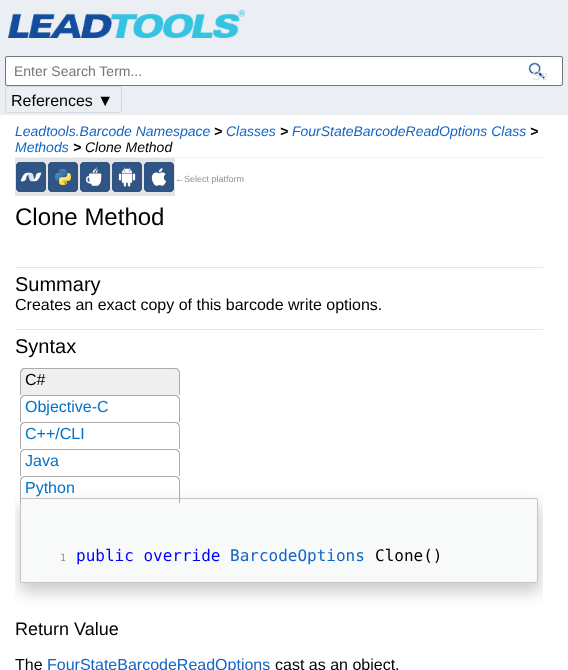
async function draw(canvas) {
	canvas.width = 568;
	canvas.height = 670;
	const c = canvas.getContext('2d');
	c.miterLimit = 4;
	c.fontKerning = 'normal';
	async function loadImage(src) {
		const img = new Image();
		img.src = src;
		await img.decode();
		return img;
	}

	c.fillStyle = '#fff';
	c.fillRect(0, 0, 568, 670);
	c.fillStyle = '#ebeef3';
	c.fillRect(0, 0, 568, 115);
	c.drawImage(await loadImage('img1.png'), 8, 10, 237, 28);
	c.fillStyle = '#fff';
	c.beginPath();
	c.roundRect(5.5, 56.5, 557, 29, 1.5);
	c.fill();
	c.strokeStyle = '#767676';
	c.stroke();
	c.font = '14px Liberation Sans';
	c.fillStyle = '#757575';
	c.fillText('Enter Search Term...', 14, 76);
	c.drawImage(await loadImage('img2.png'), 528, 62, 17, 17);
	c.font = '13px Liberation Sans';
	c.fillStyle = '#d9e2ed';
	c.fillText('Se', 532, 80);
	c.beginPath();
	c.roundRect(5.5, 86.5, 116, 26, 2.5);
	c.strokeStyle = '#d6d8dc';
	c.stroke();
	c.font = '16px Liberation Sans';
	c.fillStyle = '#000';
	c.fillText('References ▼', 11, 106);
	c.fillStyle = '#f1f1f1';
	c.fillRect(15, 157, 528, 1);
	c.font = 'italic 14px Liberation Sans';
	c.fillStyle = '#1364c4';
	c.fillText('Leadtools.Barcode Namespace', 15, 136);
	c.font = 'italic bold 14px Liberation Sans';
	c.fillStyle = '#000';
	c.fillText('>', 214, 136);
	c.font = 'italic 14px Liberation Sans';
	c.fillStyle = '#1364c4';
	c.fillText('Classes', 226, 136);
	c.font = 'italic bold 14px Liberation Sans';
	c.fillStyle = '#000';
	c.fillText('>', 280, 136);
	c.font = 'italic 14px Liberation Sans';
	c.fillStyle = '#1364c4';
	c.fillText('FourStateBarcodeReadOptions Class', 292, 136);
	c.font = 'italic bold 14px Liberation Sans';
	c.fillStyle = '#000';
	c.fillText('>', 530, 136);
	c.font = 'italic 14px Liberation Sans';
	c.fillStyle = '#1364c4';
	c.fillText('Methods', 15, 152);
	c.font = 'italic bold 14px Liberation Sans';
	c.fillStyle = '#000';
	c.fillText('>', 73, 152);
	c.font = 'italic 14px Liberation Sans';
	c.fillText('Clone Method', 85, 152);
	c.fillStyle = '#e4e4e4';
	c.fillRect(15, 158, 160, 38);
	c.drawImage(await loadImage('img3.png'), 16, 162, 30, 30);
	c.drawImage(await loadImage('img4.png'), 48, 162, 30, 30);
	c.drawImage(await loadImage('img5.png'), 80, 162, 30, 30);
	c.drawImage(await loadImage('img6.png'), 112, 162, 30, 30);
	c.drawImage(await loadImage('img7.png'), 144, 162, 30, 30);
	c.font = '9px Liberation Sans';
	c.fillStyle = '#909090';
	c.fillText('←Select platform', 175, 182);
	c.font = '24px Liberation Sans';
	c.fillStyle = '#000';
	c.fillText('Clone Method', 15, 225);
	c.fillStyle = '#e6e6e6';
	c.fillRect(15, 267, 528, 1);
	c.font = '20px Liberation Sans';
	c.fillStyle = '#000';
	c.fillText('Summary', 15, 291);
	c.font = '16px Liberation Sans';
	c.fillText('Creates an exact copy of this barcode write options.', 15, 310);
	c.fillStyle = '#e6e6e6';
	c.fillRect(15, 329, 528, 1);
	c.font = '20px Liberation Sans';
	c.fillStyle = '#000';
	c.fillText('Syntax', 15, 353);
	c.fillStyle = '#efefef';
	c.beginPath();
	c.roundRect(21, 369, 158, 26, [4, 4, 0, 0]);
	c.fill();
	c.fillStyle = '#b0aaaa';
	c.beginPath();
	c.moveTo(25, 368);
	c.lineTo(175, 368);
	c.bezierCurveTo(178, 368, 180, 370, 180, 373);
	c.lineTo(180, 395);
	c.lineTo(20, 395);
	c.lineTo(20, 373);
	c.bezierCurveTo(20, 370, 22, 368, 25, 368);
	c.closePath();
	c.moveTo(25, 369);
	c.lineTo(175, 369);
	c.bezierCurveTo(177, 369, 179, 371, 179, 373);
	c.lineTo(179, 395);
	c.lineTo(21, 395);
	c.lineTo(21, 373);
	c.bezierCurveTo(21, 371, 23, 369, 25, 369);
	c.closePath();
	c.fill('evenodd');
	c.font = '16px Liberation Sans';
	c.fillStyle = '#000';
	c.fillText('C#', 25, 385);
	c.fillStyle = '#b0aaaa';
	c.beginPath();
	c.moveTo(25, 395);
	c.lineTo(175, 395);
	c.bezierCurveTo(178, 395, 180, 397, 180, 400);
	c.lineTo(180, 422);
	c.lineTo(20, 422);
	c.lineTo(20, 400);
	c.bezierCurveTo(20, 397, 22, 395, 25, 395);
	c.closePath();
	c.moveTo(25, 396);
	c.lineTo(175, 396);
	c.bezierCurveTo(177, 396, 179, 398, 179, 400);
	c.lineTo(179, 422);
	c.lineTo(21, 422);
	c.lineTo(21, 400);
	c.bezierCurveTo(21, 398, 23, 396, 25, 396);
	c.closePath();
	c.fill('evenodd');
	c.fillStyle = '#0072c6';
	c.fillText('Objective-C', 25, 412);
	c.fillStyle = '#b0aaaa';
	c.beginPath();
	c.moveTo(25, 422);
	c.lineTo(175, 422);
	c.bezierCurveTo(178, 422, 180, 424, 180, 427);
	c.lineTo(180, 449);
	c.lineTo(20, 449);
	c.lineTo(20, 427);
	c.bezierCurveTo(20, 424, 22, 422, 25, 422);
	c.closePath();
	c.moveTo(25, 423);
	c.lineTo(175, 423);
	c.bezierCurveTo(177, 423, 179, 425, 179, 427);
	c.lineTo(179, 449);
	c.lineTo(21, 449);
	c.lineTo(21, 427);
	c.bezierCurveTo(21, 425, 23, 423, 25, 423);
	c.closePath();
	c.fill('evenodd');
	c.fillStyle = '#0072c6';
	c.fillText('C++/CLI', 25, 439);
	c.fillStyle = '#b0aaaa';
	c.beginPath();
	c.moveTo(25, 449);
	c.lineTo(175, 449);
	c.bezierCurveTo(178, 449, 180, 451, 180, 454);
	c.lineTo(180, 476);
	c.lineTo(20, 476);
	c.lineTo(20, 454);
	c.bezierCurveTo(20, 451, 22, 449, 25, 449);
	c.closePath();
	c.moveTo(25, 450);
	c.lineTo(175, 450);
	c.bezierCurveTo(177, 450, 179, 452, 179, 454);
	c.lineTo(179, 476);
	c.lineTo(21, 476);
	c.lineTo(21, 454);
	c.bezierCurveTo(21, 452, 23, 450, 25, 450);
	c.closePath();
	c.fill('evenodd');
	c.fillStyle = '#0072c6';
	c.fillText('Java', 25, 466);
	c.save();
	c.beginPath();
	c.rect(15, 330, 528, 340);
	c.clip();
	c.beginPath();
	c.moveTo(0, 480);
	c.lineTo(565, 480);
	c.lineTo(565, 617);
	c.lineTo(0, 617);
	c.closePath();
	c.moveTo(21.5, 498);
	c.lineTo(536.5, 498);
	c.bezierCurveTo(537.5, 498, 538, 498.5, 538, 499.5);
	c.lineTo(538, 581.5);
	c.bezierCurveTo(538, 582.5, 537.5, 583, 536.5, 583);
	c.lineTo(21.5, 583);
	c.bezierCurveTo(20.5, 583, 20, 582.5, 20, 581.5);
	c.lineTo(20, 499.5);
	c.bezierCurveTo(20, 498.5, 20.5, 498, 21.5, 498);
	c.closePath();
	c.clip('evenodd');
	c.fillStyle = '#00000033';
	c.filter = 'blur(8px)';
	c.beginPath();
	c.roundRect(20, 505, 520, 87, 2.5);
	c.fill();
	c.filter = 'none';
	c.restore();
	c.fillStyle = '#eeeff066';
	c.beginPath();
	c.roundRect(20, 498, 518, 85, 1.5);
	c.fill();
	c.beginPath();
	c.roundRect(20.5, 498.5, 517, 84, 1);
	c.strokeStyle = '#76767666';
	c.stroke();
	c.fillStyle = '#b0aaaa';
	c.beginPath();
	c.moveTo(25, 476);
	c.lineTo(175, 476);
	c.bezierCurveTo(178, 476, 180, 478, 180, 481);
	c.lineTo(180, 503);
	c.lineTo(20, 503);
	c.lineTo(20, 481);
	c.bezierCurveTo(20, 478, 22, 476, 25, 476);
	c.closePath();
	c.moveTo(25, 477);
	c.lineTo(175, 477);
	c.bezierCurveTo(177, 477, 179, 479, 179, 481);
	c.lineTo(179, 503);
	c.lineTo(21, 503);
	c.lineTo(21, 481);
	c.bezierCurveTo(21, 479, 23, 477, 25, 477);
	c.closePath();
	c.fill('evenodd');
	c.fillStyle = '#0072c6';
	c.fillText('Python', 25, 493);
	c.font = '10px DejaVu Sans Mono';
	c.fillStyle = '#909090';
	c.fillText('1', 60, 561);
	c.font = '16px DejaVu Sans Mono';
	c.fillStyle = '#00f';
	c.fillText('public override', 76, 561);
	c.fillStyle = '#1364c4';
	c.fillText('BarcodeOptions', 230, 561);
	c.fillStyle = '#000';
	c.fillText('Clone()', 375, 561);
	c.font = '18px Liberation Sans';
	c.fillText('Return Value', 15, 635);
	c.font = '16px Liberation Sans';
	c.fillText('The', 15, 670);
	c.fillStyle = '#1364c4';
	c.fillText('FourStateBarcodeReadOptions', 47, 670);
	c.fillStyle = '#000';
	c.fillText('cast as an object.', 275, 670);
}

draw(document.querySelector('canvas'));
